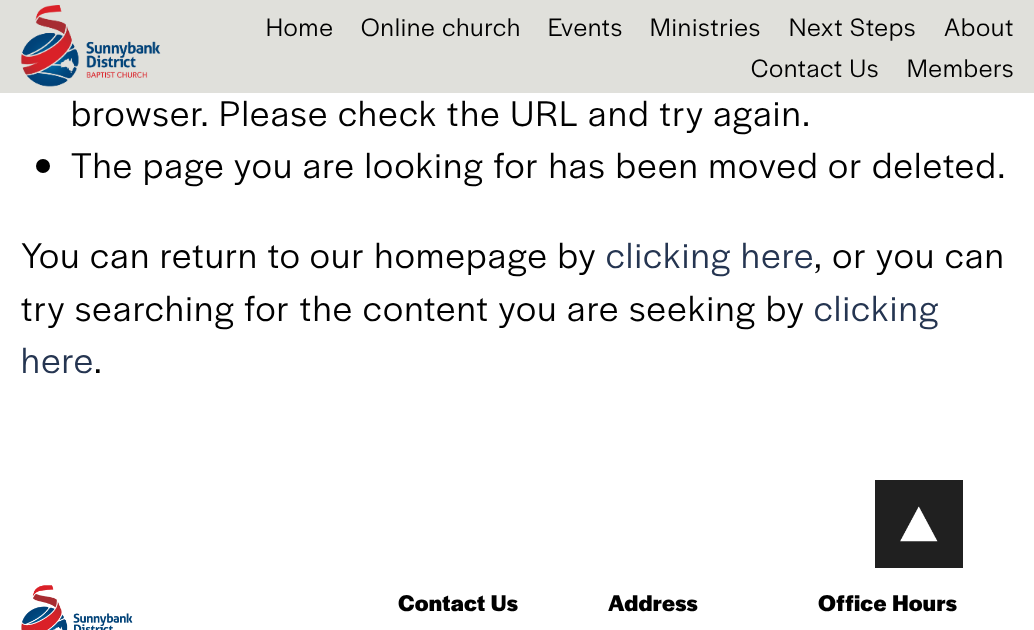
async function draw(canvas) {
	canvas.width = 1034;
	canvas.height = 630;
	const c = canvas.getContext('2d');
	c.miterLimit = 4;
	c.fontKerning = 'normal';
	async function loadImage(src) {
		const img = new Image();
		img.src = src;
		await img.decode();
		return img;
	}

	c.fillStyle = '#fff';
	c.fillRect(0, 0, 1034, 630);
	c.fillStyle = '#e0e0db';
	c.fillRect(0, 0, 1034, 93);
	c.drawImage(await loadImage('img1.png'), 20, 5, 141, 82);
	c.letterSpacing = '1.25px';
	c.font = '26.25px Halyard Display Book';
	c.fillStyle = '#000';
	for (const [text, x, y] of [
		['Home', 266, 36],
		['Online church', 361, 36],
		['Events', 548, 36],
		['Ministries', 650, 36],
		['Next Steps', 789, 36],
		['About', 944, 36],
		['Contact Us', 751, 77],
		['Members', 907, 77],
	]) {
		c.fillText(text, x, y);
	}
	c.letterSpacing = '1.87px';
	c.font = '37.4px Halyard Display Book';
	c.fillText('browser. Please check the URL and try again.', 71, 126);
	c.beginPath();
	c.arc(43, 166, 7, 0, 2 * Math.PI);
	c.fill();
	c.fillText('The page you are looking for has been moved or deleted.', 71, 178);
	c.fillText('You can return to our homepage by', 21, 268);
	c.fillStyle = '#253551';
	c.fillText('clicking here', 606, 268);
	c.fillStyle = '#000';
	c.fillText(', or you can', 814, 268);
	c.fillText('try searching for the content you are seeking by', 21, 321);
	c.fillStyle = '#253551';
	c.fillText('clicking', 814, 321);
	c.fillText('here', 21, 373);
	c.fillStyle = '#000';
	c.fillText('.', 94, 373);
	c.drawImage(await loadImage('img2.png'), 21, 585, 112, 45);
	c.letterSpacing = '0.5px';
	c.font = 'bold 23.75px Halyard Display';
	for (const [text, x, y] of [
		['Contact Us', 398, 611],
		['Address', 608, 611],
		['Office Hours', 818, 611],
	]) {
		c.fillText(text, x, y);
	}
	c.fillStyle = '#202020';
	c.fillRect(875, 480, 88, 88);
	c.drawImage(await loadImage('img3.png'), 900, 506, 38, 36);
}

draw(document.querySelector('canvas'));
